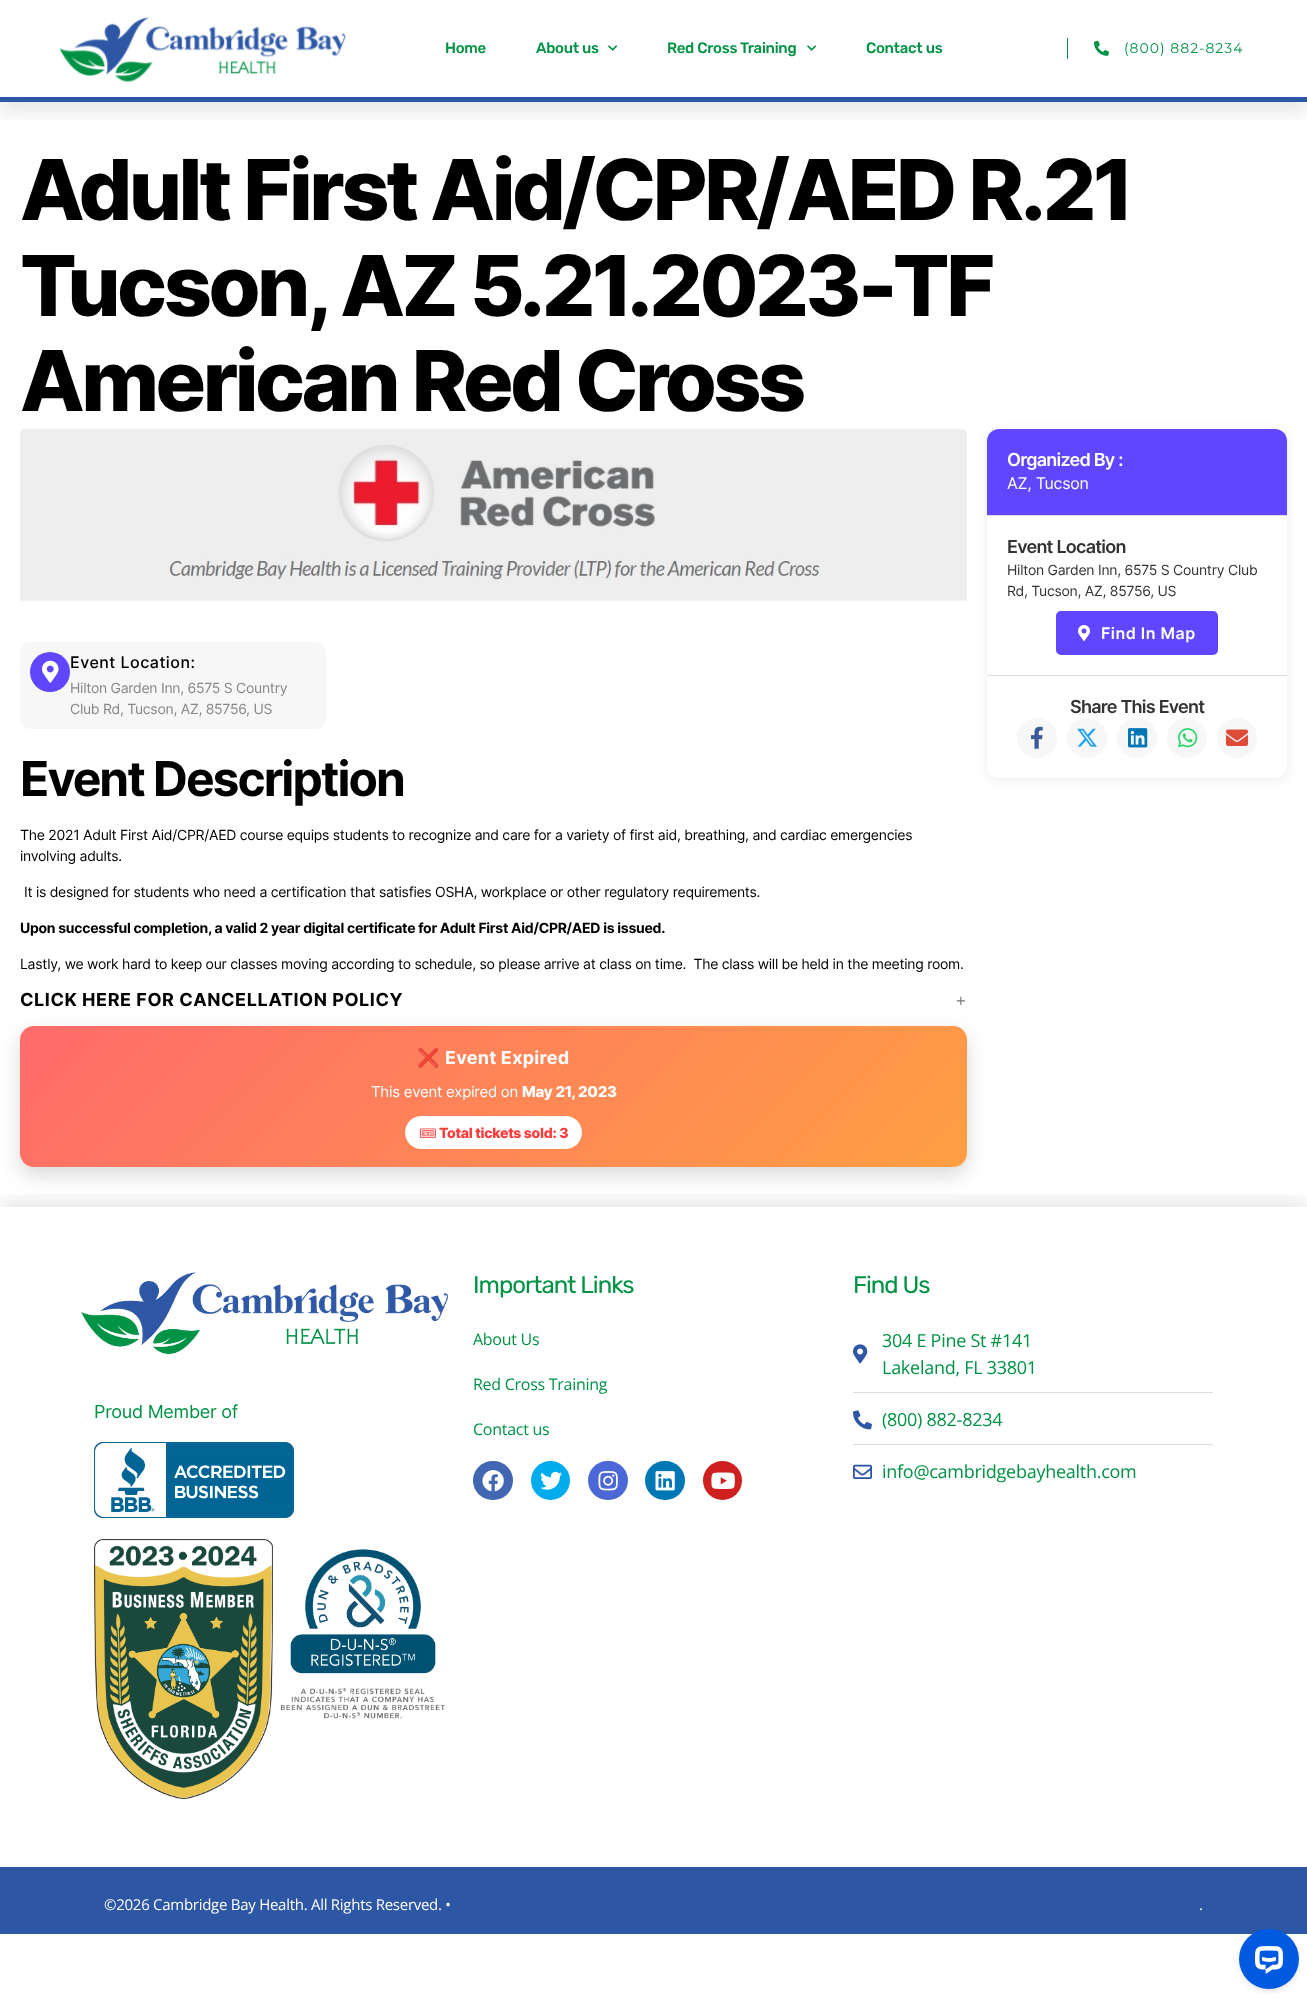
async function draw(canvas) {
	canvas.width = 1307;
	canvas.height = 2005;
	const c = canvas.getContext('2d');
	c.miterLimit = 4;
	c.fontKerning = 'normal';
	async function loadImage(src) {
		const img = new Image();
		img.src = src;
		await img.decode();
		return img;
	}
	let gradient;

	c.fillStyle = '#fff';
	c.fillRect(0, 0, 1307, 2005);
	c.save();
	c.beginPath();
	c.rect(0, 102, 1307, 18);
	c.clip();
	c.fillStyle = '#0000001a';
	c.filter = 'blur(10px)';
	c.beginPath();
	c.rect(0, 10, 1307, 102);
	c.fill();
	c.filter = 'none';
	c.restore();
	c.fillStyle = '#2d57a6';
	c.fillRect(0, 97, 1307, 5);
	c.drawImage(await loadImage('img1.png'), 59, 17, 287, 66);
	c.letterSpacing = '-0.27px';
	c.font = '500 15px Rubik';
	c.fillStyle = '#009244';
	c.fillText('Home', 445, 53);
	c.fillText('About us', 536, 53);
	c.drawImage(await loadImage('img2.png'), 608, 45, 9, 6);
	c.fillText('Red Cross Training', 667, 53);
	c.drawImage(await loadImage('img2.png'), 807, 45, 9, 6);
	c.fillText('Contact us', 866, 53);
	c.fillStyle = '#009245';
	c.fillRect(1067, 38, 1, 21);
	c.drawImage(await loadImage('img3.png'), 1094, 40, 15, 16);
	c.letterSpacing = '1px';
	c.font = '14px Montserrat';
	c.fillStyle = '#009244';
	c.fillText('(800) 882-8234', 1124, 53);
	c.letterSpacing = '-3.5px';
	c.font = '800 84px Inter';
	c.fillStyle = '#000';
	for (const [text, x, y] of [
		['Adult First Aid/CPR/AED R.21', 20, 220],
		['Tucson, AZ 5.21.2023-TF', 20, 316],
		['American Red Cross', 20, 411],
	]) {
		c.fillText(text, x, y);
	}
	c.fillStyle = '#00000014';
	c.filter = 'blur(6px)';
	c.beginPath();
	c.roundRect(987, 431, 300, 349, 12);
	c.fill();
	c.filter = 'none';
	c.fillStyle = '#fff';
	c.beginPath();
	c.roundRect(987, 429, 300, 349, 12);
	c.fill();
	c.fillStyle = '#6046ff';
	c.beginPath();
	c.roundRect(987, 429, 300, 86, [12, 12, 0, 0]);
	c.fill();
	c.letterSpacing = '-0.75px';
	c.font = '600 18px Inter';
	c.fillStyle = '#fff';
	c.fillText('Organized By :', 1007, 466);
	c.letterSpacing = '-0.27px';
	c.font = '16px Inter';
	c.fillText('AZ, Tucson', 1007, 489);
	c.fillStyle = '#ddd';
	c.fillRect(987, 515, 300, 1);
	c.letterSpacing = '-0.75px';
	c.font = '600 18px Inter';
	c.fillStyle = '#333';
	c.fillText('Event Location', 1007, 553);
	c.letterSpacing = '-0.27px';
	c.font = '14px Inter';
	c.fillText('Hilton Garden Inn, 6575 S Country Club', 1007, 575);
	c.fillText('Rd, Tucson, AZ, 85756, US', 1007, 596);
	c.fillStyle = '#6046ff';
	c.beginPath();
	c.roundRect(1057, 612, 160, 42, 4);
	c.fill();
	c.strokeStyle = '#6046ff';
	c.lineWidth = 2;
	c.stroke();
	c.drawImage(await loadImage('img4.png'), 1078, 625, 12, 16);
	c.letterSpacing = '0.5px';
	c.font = '600 16px Inter';
	c.fillStyle = '#fff';
	c.fillText('Find In Map', 1101, 639);
	c.fillStyle = '#ddd';
	c.fillRect(987, 675, 300, 1);
	c.letterSpacing = '-0.75px';
	c.font = '600 18px Inter';
	c.fillStyle = '#333';
	c.fillText('Share This Event', 1070, 713);
	c.fillStyle = '#f7f7f7';
	c.beginPath();
	c.arc(1037, 738, 20, 0, 2 * Math.PI);
	c.fill();
	c.drawImage(await loadImage('img5.png'), 1031, 726, 12, 23);
	c.beginPath();
	c.arc(1087, 738, 20, 0, 2 * Math.PI);
	c.fill();
	c.drawImage(await loadImage('img6.png'), 1077, 728, 20, 19);
	c.beginPath();
	c.arc(1137, 738, 20, 0, 2 * Math.PI);
	c.fill();
	c.drawImage(await loadImage('img7.png'), 1128, 728, 20, 20);
	c.beginPath();
	c.arc(1187, 738, 20, 0, 2 * Math.PI);
	c.fill();
	c.drawImage(await loadImage('img8.png'), 1178, 728, 20, 20);
	c.beginPath();
	c.arc(1237, 738, 20, 0, 2 * Math.PI);
	c.fill();
	c.drawImage(await loadImage('img9.png'), 1226, 729, 22, 17);
	c.drawImage(await loadImage('img10.png'), 20, 429, 947, 172);
	c.beginPath();
	c.roundRect(20, 642, 306, 87, 10);
	c.fill();
	c.fillStyle = '#6046ff';
	c.beginPath();
	c.arc(50, 672, 20, 0, 2 * Math.PI);
	c.fill();
	c.drawImage(await loadImage('img11.png'), 42, 660, 17, 23);
	c.letterSpacing = '0.5px';
	c.font = '500 16px Inter';
	c.fillStyle = '#000';
	c.fillText('Event Location:', 70, 668);
	c.letterSpacing = '-0.27px';
	c.font = '14px Inter';
	c.fillStyle = '#878787';
	c.fillText('Hilton Garden Inn, 6575 S Country', 70, 693);
	c.fillText('Club Rd, Tucson, AZ, 85756, US', 70, 714);
	c.letterSpacing = '-2px';
	c.font = 'bold 48px Inter';
	c.fillStyle = '#000';
	c.fillText('Event Description', 20, 796);
	c.letterSpacing = '-0.27px';
	c.font = '14px Inter';
	for (const [text, x, y] of [
		['The 2021 Adult First Aid/CPR/AED course equips students to recognize and care for a variety of first aid, breathing, and cardiac emergencies', 20, 840],
		['involving adults.', 20, 861],
		['It is designed for students who need a certification that satisfies OSHA, workplace or other regulatory requirements.', 24, 897],
	]) {
		c.fillText(text, x, y);
	}
	c.font = 'bold 14px Inter';
	c.fillText('Upon successful completion, a valid 2 year digital certificate for Adult First Aid/CPR/AED is issued.', 20, 933);
	c.font = '14px Inter';
	c.fillText('Lastly, we work hard to keep our classes moving according to schedule, so please arrive at class on time.  The class will be held in the meeting room.', 20, 969);
	c.fillStyle = '#00000026';
	c.filter = 'blur(10px)';
	c.beginPath();
	c.roundRect(20, 1034, 947, 141, 14);
	c.fill();
	c.filter = 'none';
	c.letterSpacing = '0.55px';
	c.font = 'bold 18px Inter';
	c.fillStyle = '#000';
	c.fillText('CLICK HERE FOR CANCELLATION POLICY', 20, 1006);
	c.font = '300 18px Inter';
	c.fillStyle = '#777';
	c.fillText('+', 955, 1006);
	gradient = c.createLinearGradient(221, 825, 766, 1369);
	gradient.addColorStop(0, '#ff6b6b');
	gradient.addColorStop(1, '#ff9f43');
	c.fillStyle = gradient;
	c.beginPath();
	c.roundRect(20, 1026, 947, 141, 14);
	c.fill();
	c.letterSpacing = '0.25px';
	c.font = 'bold 18px Noto Color Emoji';
	c.fillStyle = '#fff';
	c.fillText('❌', 417, 1064);
	c.font = 'bold 18px Inter';
	c.fillText('Event Expired', 445, 1064);
	c.letterSpacing = '-0.27px';
	c.font = '15px Inter';
	c.fillText('This event expired on', 371, 1097);
	c.font = '800 15px Inter';
	c.fillText('May 21, 2023', 522, 1097);
	c.beginPath();
	c.roundRect(405, 1116, 177, 33, 16.5);
	c.fill();
	c.font = 'bold 14px Noto Emoji';
	c.fillStyle = '#ff3b3b';
	c.fillText('🎟', 419, 1138);
	c.font = '800 14px Inter';
	c.fillText('Total tickets sold: 3', 439, 1138);
	c.save();
	c.beginPath();
	c.rect(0, 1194, 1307, 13);
	c.clip();
	c.fillStyle = '#0000001a';
	c.filter = 'blur(10px)';
	c.beginPath();
	c.rect(0, 1202, 1307, 660);
	c.fill();
	c.filter = 'none';
	c.restore();
	c.drawImage(await loadImage('img12.png'), 81, 1272, 367, 82);
	c.font = '18px Inter';
	c.fillStyle = '#009244';
	c.fillText('Proud Member of', 94, 1418);
	c.drawImage(await loadImage('img13.png'), 94, 1442, 200, 76);
	c.drawImage(await loadImage('img14.png'), 94, 1539, 179, 260);
	c.drawImage(await loadImage('img15.png'), 280, 1549, 165, 170);
	c.letterSpacing = '-1px';
	c.font = '24px Rubik';
	c.fillText('Important Links', 473, 1293);
	c.letterSpacing = '-0.27px';
	c.font = '16px Open Sans';
	for (const [text, x, y] of [
		['About Us', 473, 1345],
		['Red Cross Training', 473, 1390],
		['Contact us', 473, 1435],
	]) {
		c.fillText(text, x, y);
	}
	c.fillStyle = '#4267b2';
	c.beginPath();
	c.roundRect(473, 1461, 40, 39, 19.5);
	c.fill();
	c.drawImage(await loadImage('img16.png'), 482, 1470, 22, 22);
	c.fillStyle = '#00acee';
	c.beginPath();
	c.arc(550.5, 1480.5, 19.5, 0, 2 * Math.PI);
	c.fill();
	c.drawImage(await loadImage('img17.png'), 540, 1471, 22, 19);
	c.fillStyle = '#4c68d7';
	c.beginPath();
	c.roundRect(588, 1461, 40, 39, 19.5);
	c.fill();
	c.drawImage(await loadImage('img18.png'), 598, 1471, 20, 20);
	c.fillStyle = '#0077b5';
	c.beginPath();
	c.roundRect(645, 1461, 40, 39, 19.5);
	c.fill();
	c.drawImage(await loadImage('img19.png'), 655, 1471, 20, 20);
	c.fillStyle = '#cd201f';
	c.beginPath();
	c.arc(722.5, 1480.5, 19.5, 0, 2 * Math.PI);
	c.fill();
	c.drawImage(await loadImage('img20.png'), 711, 1472, 24, 17);
	c.letterSpacing = '-1px';
	c.font = '24px Rubik';
	c.fillStyle = '#009244';
	c.fillText('Find Us', 853, 1293);
	c.drawImage(await loadImage('img21.png'), 853, 1344, 15, 20);
	c.letterSpacing = '-0.27px';
	c.font = '18px Open Sans';
	c.fillText('304 E Pine St #141', 882, 1347);
	c.fillText('Lakeland, FL 33801', 882, 1374);
	c.fillStyle = '#ddd';
	c.fillRect(853, 1392, 360, 1);
	c.drawImage(await loadImage('img22.png'), 853, 1410, 19, 20);
	c.fillStyle = '#009244';
	c.fillText('(800) 882-8234', 882, 1426);
	c.fillStyle = '#ddd';
	c.fillRect(853, 1444, 360, 1);
	c.drawImage(await loadImage('img23.png'), 853, 1464, 19, 15);
	c.fillStyle = '#009244';
	c.fillText('info@cambridgebayhealth.com', 882, 1478);
	c.fillStyle = '#2d56a5';
	c.fillRect(0, 1867, 1307, 67);
	c.font = '15px Open Sans';
	c.fillStyle = '#fff';
	c.fillText('©2026 Cambridge Bay Health. All Rights Reserved. •', 104, 1910);
	c.fillText('.', 1199, 1910);
	c.drawImage(await loadImage('img24.png'), 1237, 1929, 64, 65);
}

draw(document.querySelector('canvas'));
